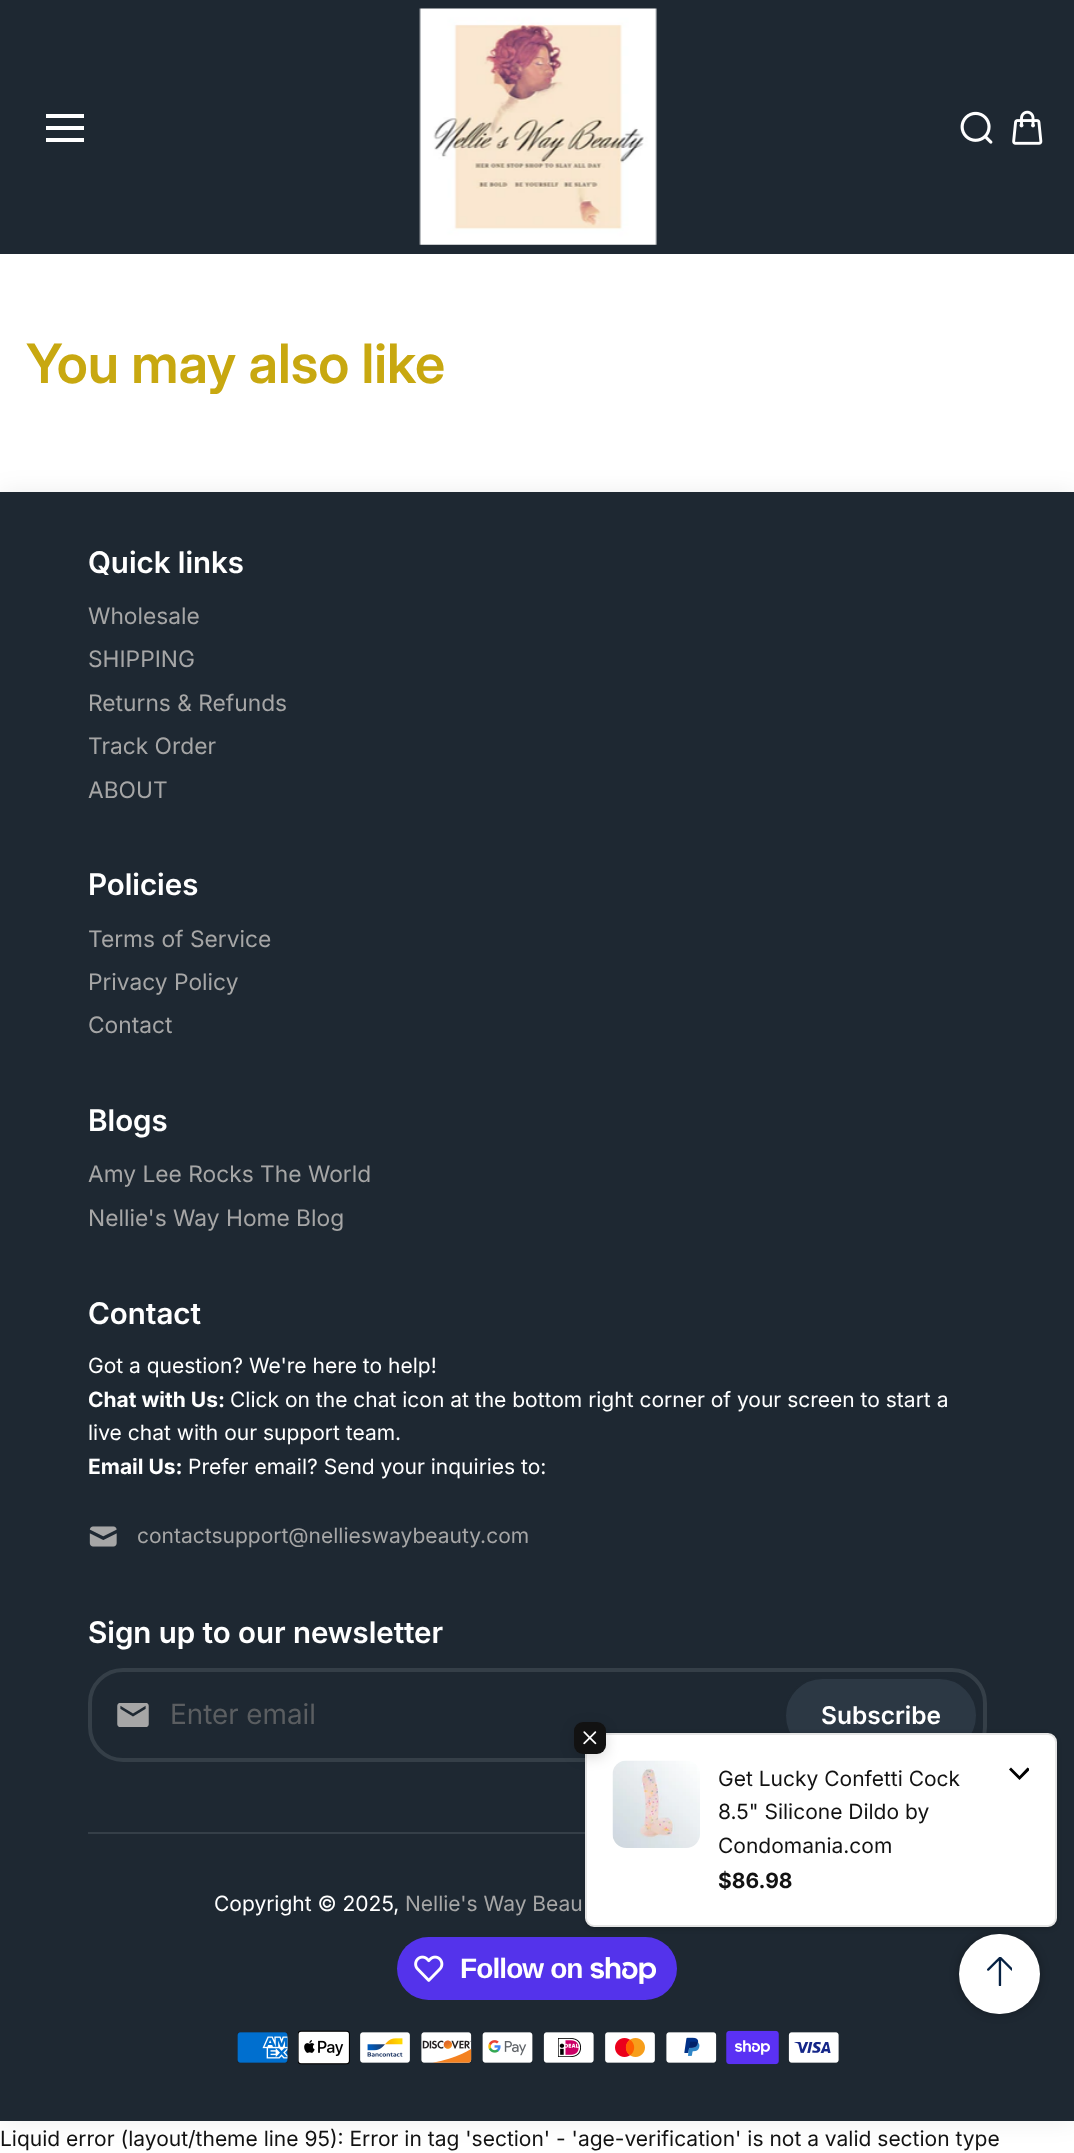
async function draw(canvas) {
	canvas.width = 1074;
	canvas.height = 2153;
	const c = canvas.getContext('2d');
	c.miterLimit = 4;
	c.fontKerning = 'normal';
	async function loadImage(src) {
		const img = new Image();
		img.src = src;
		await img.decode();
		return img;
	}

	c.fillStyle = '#fff';
	c.fillRect(0, 0, 1074, 2153);
	for (const [x, y, w, h, color] of [
		[0, 0, 1074, 254, '#1e2832'],
		[46, 114, 38, 4, '#fff'],
		[46, 126, 38, 4, '#fff'],
		[46, 138, 38, 4, '#fff'],
	]) {
		c.fillStyle = color;
		c.fillRect(x, y, w, h);
	}
	c.drawImage(await loadImage('img1.png'), 419, 8, 238, 237);
	c.drawImage(await loadImage('img2.png'), 960, 111, 33, 33);
	c.drawImage(await loadImage('img3.png'), 1012, 110, 31, 35);
	c.font = '600 54.25px Inter';
	c.fillStyle = '#c8a810';
	c.fillText('You may also like', 26, 383);
	c.fillStyle = '#00000012';
	c.filter = 'blur(12px)';
	c.beginPath();
	c.rect(0, 492, 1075, 1629);
	c.fill();
	c.filter = 'none';
	c.fillStyle = '#1e2832';
	c.fillRect(0, 492, 1074, 1629);
	c.beginPath();
	c.roundRect(90, 1670, 895, 90, 33);
	c.strokeStyle = '#353f48';
	c.lineWidth = 4;
	c.stroke();
	c.fillStyle = '#2c3844';
	c.beginPath();
	c.roundRect(785, 1678, 192, 75, 37.5);
	c.fill();
	c.strokeStyle = '#1e2832';
	c.lineWidth = 2;
	c.stroke();
	c.fillStyle = '#353f48';
	c.fillRect(88, 1832, 497, 2);
	c.fillStyle = '#0000004d';
	c.filter = 'blur(5px)';
	c.beginPath();
	c.roundRect(959, 1934, 81, 80, 40);
	c.fill();
	c.filter = 'none';
	c.fillStyle = '#fff';
	c.beginPath();
	c.roundRect(959, 1934, 81, 80, 40);
	c.fill();
	c.fillStyle = '#00000030';
	c.filter = 'blur(2px)';
	c.beginPath();
	c.roundRect(585, 1734, 472, 195, 9);
	c.fill();
	c.filter = 'none';
	c.fillStyle = '#fff';
	c.beginPath();
	c.roundRect(586, 1734, 470, 192, 8);
	c.fill();
	c.strokeStyle = '#e5e5e5';
	c.stroke();
	c.fillStyle = '#00000026';
	c.filter = 'blur(7px)';
	c.beginPath();
	c.roundRect(574, 1726, 32, 31, 9);
	c.fill();
	c.filter = 'none';
	c.fillStyle = '#121212';
	c.beginPath();
	c.roundRect(574, 1722, 32, 32, 9);
	c.fill();
	c.drawImage(await loadImage('img4.png'), 583, 1731, 14, 14);
	c.drawImage(await loadImage('img5.png'), 612, 1760, 88, 88);
	c.font = '21px Inter';
	for (const [text, x, y] of [
		['Get Lucky Confetti Cock', 718, 1786],
		['8.5" Silicone Dildo by', 718, 1819],
		['Condomania.com', 718, 1853],
	]) {
		c.fillText(text, x, y);
	}
	c.font = 'bold 21px Inter';
	c.fillText('$86.98', 718, 1888);
	c.fillStyle = '#000';
	c.beginPath();
	c.moveTo(1019.5, 1780);
	c.lineTo(1009, 1769.5);
	c.lineTo(1011, 1767.5);
	c.lineTo(1019.5, 1776);
	c.lineTo(1027.5, 1767.5);
	c.lineTo(1029, 1768.5);
	c.lineTo(1029, 1770.5);
	c.closePath();
	c.fill();
	c.font = '600 29.75px "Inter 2"';
	c.fillStyle = '#fff';
	c.fillText('Quick links', 88, 573);
	c.font = '22.75px Inter';
	c.fillStyle = '#a6a6a6';
	for (const [text, x, y] of [
		['Wholesale', 88, 624],
		['SHIPPING', 88, 667],
		['Returns & Refunds', 88, 711],
		['Track Order', 88, 754],
		['ABOUT', 88, 798],
	]) {
		c.fillText(text, x, y);
	}
	c.font = '600 29.75px "Inter 2"';
	c.fillStyle = '#fff';
	c.fillText('Policies', 88, 895);
	c.font = '22.75px Inter';
	c.fillStyle = '#a6a6a6';
	for (const [text, x, y] of [
		['Terms of Service', 88, 947],
		['Privacy Policy', 88, 990],
		['Contact', 88, 1033],
	]) {
		c.fillText(text, x, y);
	}
	c.font = '600 29.75px "Inter 2"';
	c.fillStyle = '#fff';
	c.fillText('Blogs', 88, 1131);
	c.font = '22.75px Inter';
	c.fillStyle = '#a6a6a6';
	c.fillText('Amy Lee Rocks The World', 88, 1182);
	c.fillText('Nellie\'s Way Home Blog', 88, 1226);
	c.font = '600 29.75px "Inter 2"';
	c.fillStyle = '#fff';
	c.fillText('Contact', 88, 1324);
	c.font = '21px Inter';
	c.fillText('Got a question? We\'re here to help!', 88, 1373);
	c.font = 'bold 21px Inter';
	c.fillText('Chat with Us:', 88, 1407);
	c.font = '21px Inter';
	c.fillText('Click on the chat icon at the bottom right corner of your screen to start a', 230, 1407);
	c.fillText('live chat with our support team.', 88, 1440);
	c.font = 'bold 21px Inter';
	c.fillText('Email Us:', 88, 1474);
	c.font = '21px Inter';
	c.fillText('Prefer email? Send your inquiries to:', 188, 1474);
	c.drawImage(await loadImage('img6.png'), 89, 1526, 28, 21);
	c.fillStyle = '#a6a6a6';
	c.fillText('contactsupport@nellieswaybeauty.com', 137, 1543);
	c.font = '600 29.75px "Inter 2"';
	c.fillStyle = '#fff';
	c.fillText('Sign up to our newsletter', 88, 1643);
	c.drawImage(await loadImage('img7.png'), 117, 1703, 32, 24);
	c.font = '28px "Inter 2"';
	c.fillStyle = '#5b5e61';
	c.fillText('Enter email', 170, 1724);
	c.font = '600 24.5px "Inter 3"';
	c.fillStyle = '#fff';
	c.fillText('Subscribe', 821, 1724);
	c.font = '21px Inter';
	c.fillText('Copyright © 2025,', 214, 1911);
	c.fillStyle = '#a6a6a6';
	c.fillText('Nellie\'s Way Beau', 405, 1911);
	c.fillStyle = '#5433eb';
	c.beginPath();
	c.roundRect(397, 1937, 280, 63, 31.5);
	c.fill();
	c.drawImage(await loadImage('img8.png'), 414, 1955, 30, 27);
	c.letterSpacing = '-0.9px';
	c.font = 'bold 28px Liberation Sans';
	c.fillStyle = '#fff';
	c.fillText('Follow on', 460, 1978);
	c.drawImage(await loadImage('img9.png'), 590, 1957, 66, 27);
	c.drawImage(await loadImage('img10.png'), 237, 2032, 51, 31);
	c.drawImage(await loadImage('img11.png'), 298, 2030, 52, 35);
	c.drawImage(await loadImage('img12.png'), 360, 2032, 50, 31);
	c.drawImage(await loadImage('img13.png'), 421, 2032, 51, 31);
	c.drawImage(await loadImage('img14.png'), 482, 2032, 51, 31);
	c.drawImage(await loadImage('img15.png'), 543, 2032, 51, 31);
	c.drawImage(await loadImage('img16.png'), 605, 2032, 50, 31);
	c.drawImage(await loadImage('img17.png'), 666, 2032, 51, 31);
	c.drawImage(await loadImage('img18.png'), 726, 2030, 53, 35);
	c.drawImage(await loadImage('img19.png'), 788, 2032, 51, 31);
	c.drawImage(await loadImage('img20.png'), 987, 1957, 25, 29);
	c.letterSpacing = '0px';
	c.font = '21px Inter';
	c.fillStyle = '#121212';
	c.fillText('Liquid error (layout/theme line 95): Error in tag \'section\' - \'age-verification\' is not a valid section type', 0, 2146);
}

draw(document.querySelector('canvas'));
